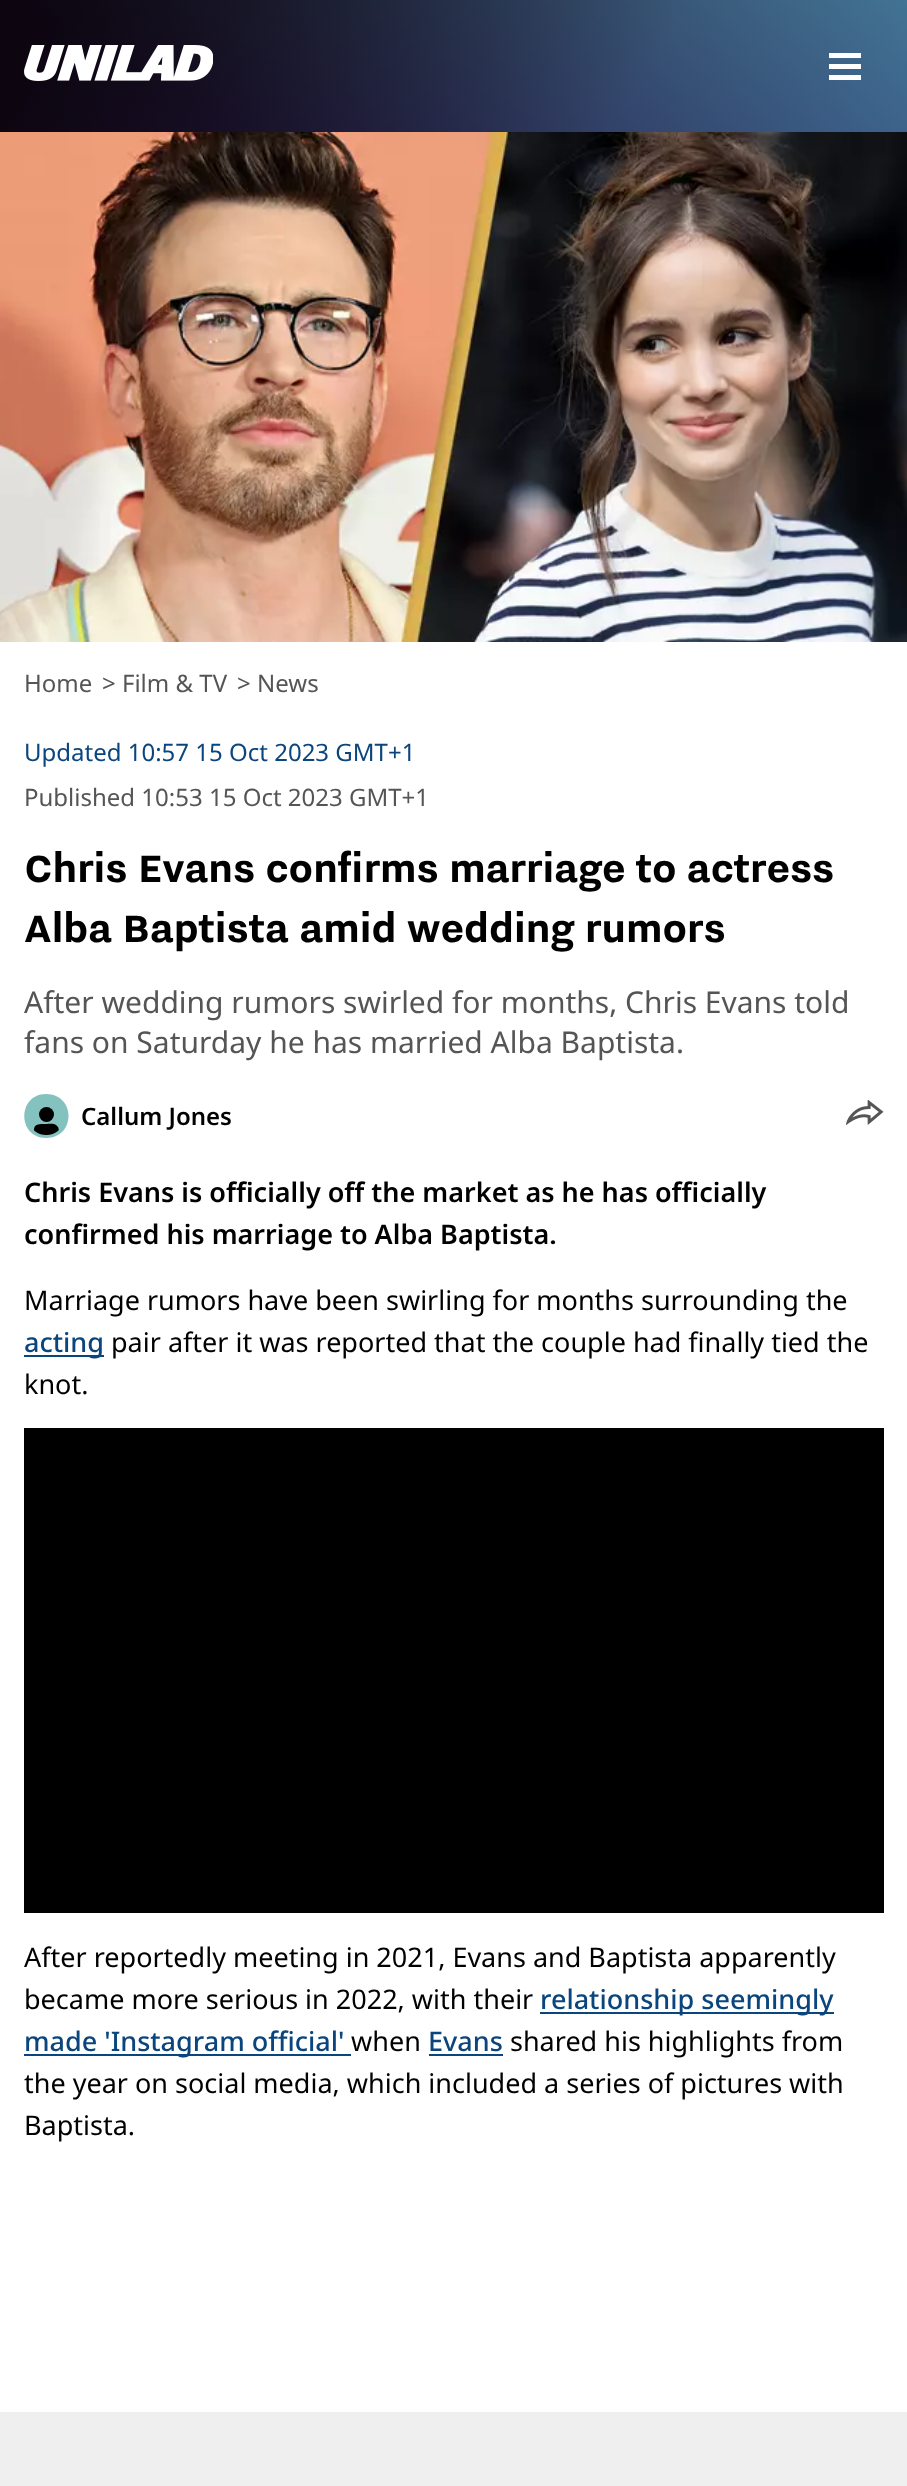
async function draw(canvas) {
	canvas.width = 907;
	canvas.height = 2486;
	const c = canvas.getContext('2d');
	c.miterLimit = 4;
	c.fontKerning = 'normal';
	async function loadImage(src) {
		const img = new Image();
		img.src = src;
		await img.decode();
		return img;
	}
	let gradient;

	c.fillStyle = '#fff';
	c.fillRect(0, 0, 907, 2486);
	gradient = c.createLinearGradient(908, 66, 0, 66);
	gradient.addColorStop(0, '#19447a');
	gradient.addColorStop(0.98, '#000');
	c.fillStyle = gradient;
	c.fillRect(0, 0, 907, 132);
	gradient = c.createLinearGradient(614, -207, 309, 313);
	gradient.addColorStop(0, '#80c1bd69');
	gradient.addColorStop(0.8, '#5927735c');
	c.fillStyle = gradient;
	c.fillRect(0, 0, 907, 132);
	gradient = c.createLinearGradient(103, -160, 805, 292);
	gradient.addColorStop(0.07, '#00000099');
	gradient.addColorStop(0.7, '#00000000');
	c.fillStyle = gradient;
	c.fillRect(0, 0, 672, 132);
	c.drawImage(await loadImage('img1.png'), 24, 45, 189, 36);
	for (const [x, y, w, h, color] of [
		[829, 53, 32, 5, '#fff'],
		[829, 64, 32, 5, '#fff'],
		[829, 75, 32, 5, '#fff'],
	]) {
		c.fillStyle = color;
		c.fillRect(x, y, w, h);
	}
	c.drawImage(await loadImage('img2.png'), 0, 132, 907, 510);
	c.font = '24px Noto Sans';
	c.fillStyle = '#555';
	for (const [text, x, y] of [
		['Home', 24, 692],
		['> Film & TV', 102, 692],
		['> News', 237, 692],
	]) {
		c.fillText(text, x, y);
	}
	c.fillStyle = '#0b457d';
	c.fillText('Updated 10:57 15 Oct 2023 GMT+1', 24, 761);
	c.fillStyle = '#555';
	c.fillText('Published 10:53 15 Oct 2023 GMT+1', 24, 806);
	c.font = 'bold 48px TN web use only';
	c.fillStyle = '#000';
	c.fillText('Chris Evans confirms marriage to actress', 24, 882);
	c.fillText('Alba Baptista amid wedding rumors', 24, 942);
	c.font = '30px Noto Sans';
	c.fillStyle = '#555';
	c.fillText('After wedding rumors swirled for months, Chris Evans told', 24, 1013);
	c.fillText('fans on Saturday he has married Alba Baptista.', 24, 1053);
	c.fillStyle = '#83c2bf';
	c.beginPath();
	c.moveTo(46, 1094);
	c.bezierCurveTo(76, 1094, 76, 1138, 46, 1138);
	c.bezierCurveTo(17, 1138, 17, 1094, 46, 1094);
	c.closePath();
	c.fill();
	c.fillStyle = '#000';
	c.beginPath();
	c.arc(46.5, 1114.5, 7.5, 0, 2 * Math.PI);
	c.fill();
	c.beginPath();
	c.moveTo(58.5, 1130.5);
	c.bezierCurveTo(51.5, 1136.5, 41, 1136.5, 34, 1130.5);
	c.bezierCurveTo(33.5, 1123, 41.5, 1124, 46.5, 1124);
	c.bezierCurveTo(50, 1124, 55, 1123, 57.5, 1126.5);
	c.bezierCurveTo(58.5, 1127.5, 59, 1129, 58.5, 1130.5);
	c.closePath();
	c.fill('evenodd');
	c.font = '600 24px Noto Sans';
	c.fillText('Callum Jones', 81, 1125);
	c.drawImage(await loadImage('img3.png'), 846, 1100, 38, 25);
	c.font = '600 27px Noto Sans';
	c.fillText('Chris Evans is officially off the market as he has officially', 24, 1202);
	c.fillText('confirmed his marriage to Alba Baptista.', 24, 1244);
	c.font = '27px Noto Sans';
	c.fillText('Marriage rumors have been swirling for months surrounding the', 24, 1310);
	c.fillStyle = '#0b457d';
	c.fillRect(24, 1355, 80, 2);
	c.font = '500 27px Noto Sans';
	c.fillText('acting', 24, 1352);
	c.font = '27px Noto Sans';
	c.fillStyle = '#000';
	c.fillText('pair after it was reported that the couple had finally tied the', 111, 1352);
	c.fillText('knot.', 24, 1394);
	c.fillRect(24, 1428, 860, 485);
	c.fillText('After reportedly meeting in 2021, Evans and Baptista apparently', 24, 1967);
	c.fillText('became more serious in 2022, with their', 24, 2009);
	c.fillStyle = '#0b457d';
	c.fillRect(540, 2012, 294, 2);
	c.font = '500 27px Noto Sans';
	c.fillText('relationship seemingly', 540, 2009);
	c.fillRect(24, 2054, 327, 2);
	c.fillText('made \'Instagram official\'', 24, 2051);
	c.font = '27px Noto Sans';
	c.fillStyle = '#000';
	c.fillText('when', 351, 2051);
	c.font = '500 27px Noto Sans';
	c.fillStyle = '#0b457d';
	c.fillText('Evans', 428, 2051);
	c.fillRect(429, 2054, 74, 2);
	c.font = '27px Noto Sans';
	c.fillStyle = '#000';
	for (const [text, x, y] of [
		['shared his highlights from', 510, 2051],
		['the year on social media, which included a series of pictures with', 24, 2093],
		['Baptista.', 24, 2135],
	]) {
		c.fillText(text, x, y);
	}
	c.fillStyle = '#efefef';
	c.fillRect(0, 2412, 907, 74);
}

draw(document.querySelector('canvas'));
